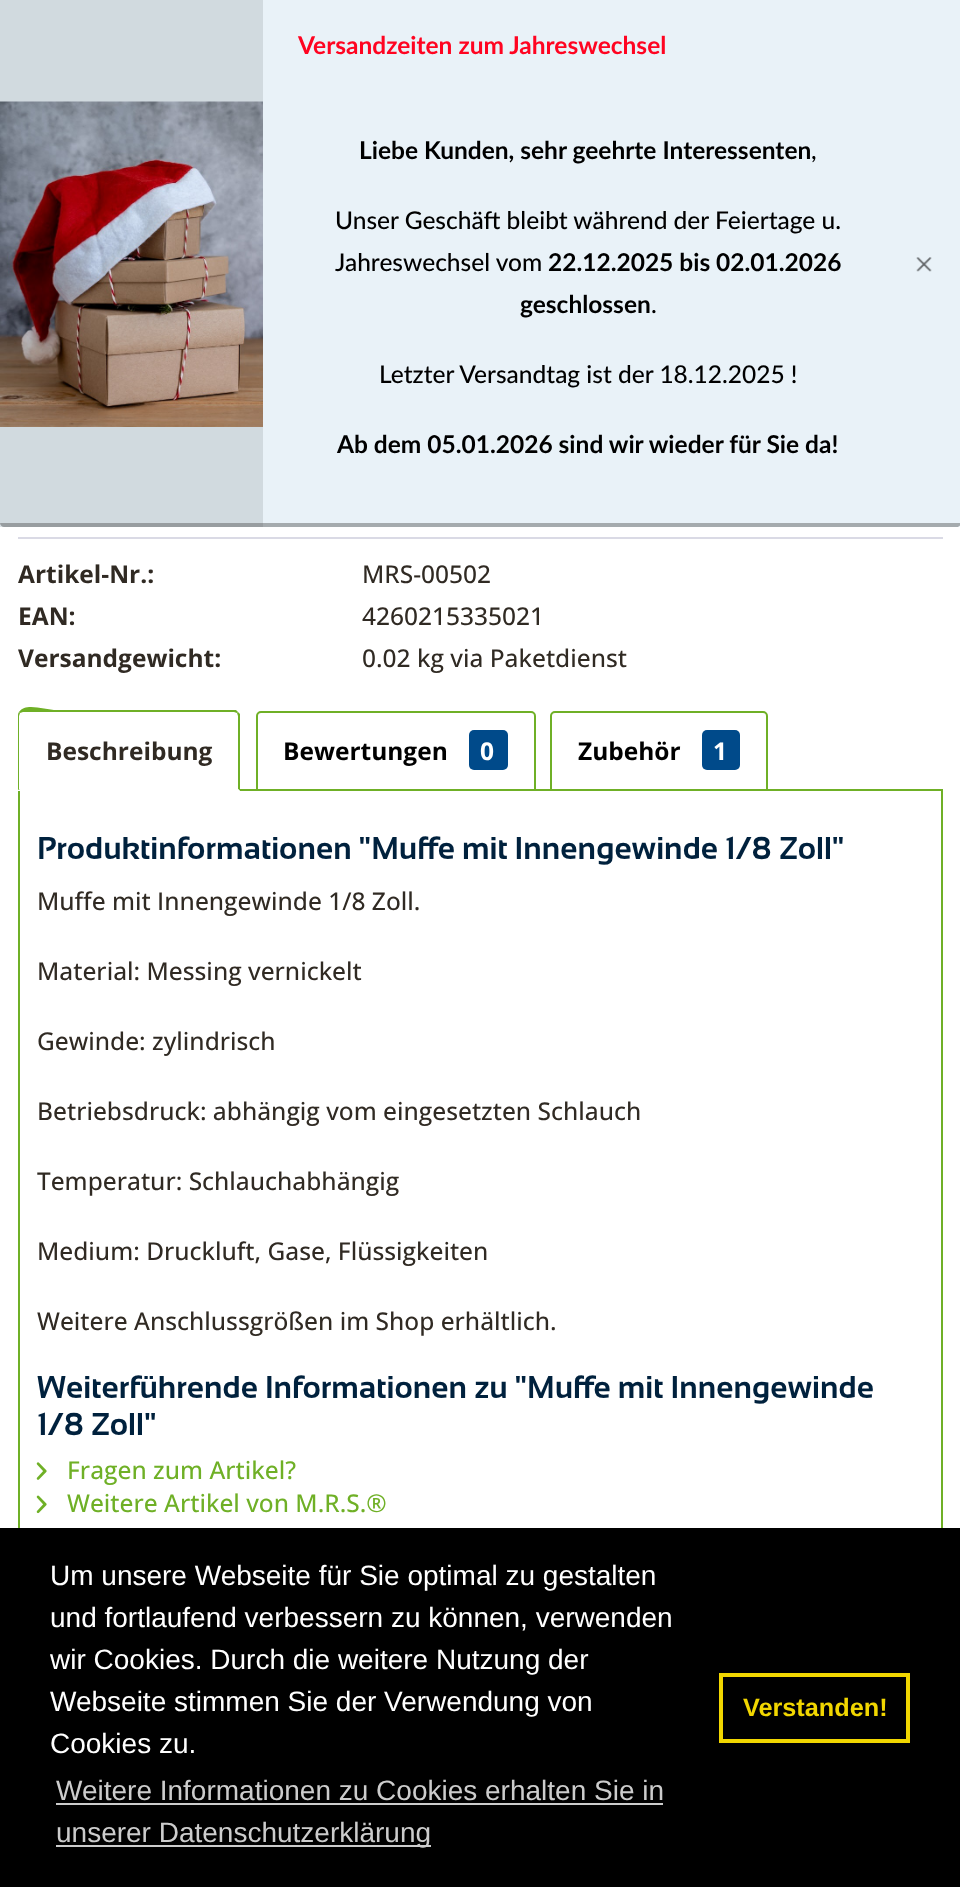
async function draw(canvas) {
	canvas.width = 960;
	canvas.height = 1887;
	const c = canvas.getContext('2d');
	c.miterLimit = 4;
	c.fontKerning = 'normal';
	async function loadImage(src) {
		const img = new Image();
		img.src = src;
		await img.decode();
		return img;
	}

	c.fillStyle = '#fff';
	c.fillRect(0, 0, 960, 1887);
	for (const [x, y, w, h, color] of [
		[263, 0, 697, 523, '#e9f2f8'],
		[263, 523, 697, 4, '#edf5f9'],
		[0, 0, 263, 523, '#d1dadf'],
		[0, 523, 263, 4, '#dae1e5'],
	]) {
		c.fillStyle = color;
		c.fillRect(x, y, w, h);
	}
	c.drawImage(await loadImage('img1.png'), 0, 101, 263, 326);
	c.font = 'bold 24.5px Lato';
	c.fillStyle = '#ff0421';
	c.fillText('Versandzeiten zum Jahreswechsel', 298, 54);
	c.fillStyle = '#000';
	c.fillText('Liebe Kunden, sehr geehrte Interessenten', 359, 159);
	c.font = '500 24.5px Lato';
	for (const [text, x, y] of [
		[',', 811, 159],
		['Unser Geschäft bleibt während der Feiertage u.', 335, 229],
		['Jahreswechsel vom', 335, 271],
	]) {
		c.fillText(text, x, y);
	}
	c.font = 'bold 24.5px Lato';
	c.fillText('22.12.2025 bis 02.01.2026', 548, 271);
	c.fillText('geschlossen', 520, 313);
	c.font = '500 24.5px Lato';
	c.fillText('.', 651, 313);
	c.fillText('Letzter Versandtag ist der 18.12.2025 !', 379, 383);
	c.font = 'bold 24.5px Lato';
	c.fillText('Ab dem 05.01.2026 sind wir wieder für Sie da!', 337, 453);
	c.drawImage(await loadImage('img2.png'), 916, 257, 16, 15);
	c.fillStyle = '#0000004d';
	c.beginPath();
	c.moveTo(0, 523);
	c.lineTo(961, 523);
	c.bezierCurveTo(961, 525, 959, 527, 957, 527);
	c.lineTo(4, 527);
	c.bezierCurveTo(2, 527, 0, 525, 0, 523);
	c.closePath();
	c.fill();
	c.fillStyle = '#dadae5';
	c.fillRect(18, 537, 925, 2);
	c.font = 'bold 24.5px Open Sans';
	c.fillStyle = '#302a23';
	c.fillText('Artikel-Nr.:', 18, 583);
	c.font = '500 24.5px Open Sans';
	c.fillText('MRS-00502', 362, 583);
	c.font = 'bold 24.5px Open Sans';
	c.fillText('EAN:', 18, 625);
	c.font = '500 24.5px Open Sans';
	c.fillText('4260215335021', 362, 625);
	c.font = 'bold 24.5px Open Sans';
	c.fillText('Versandgewicht:', 18, 667);
	c.font = '500 24.5px Open Sans';
	c.fillText('0.02 kg via Paketdienst', 362, 667);
	c.strokeStyle = '#6fb026';
	c.lineWidth = 2;
	c.strokeRect(19, 790, 923, 887);
	c.fillStyle = '#fff';
	c.beginPath();
	c.roundRect(18, 711, 222, 80, [5, 5, 0, 0]);
	c.fill();
	c.fillStyle = '#6fb026';
	c.beginPath();
	c.moveTo(23, 712);
	c.lineTo(20, 713);
	c.lineTo(19, 712);
	c.bezierCurveTo(26, 702, 44, 710, 57, 710);
	c.lineTo(236, 710);
	c.lineTo(238, 712);
	c.lineTo(237, 713);
	c.lineTo(234, 712);
	c.closePath();
	c.fill();
	c.beginPath();
	c.moveTo(240, 714);
	c.lineTo(240, 791);
	c.lineTo(238, 789);
	c.lineTo(238, 716);
	c.lineTo(237, 713);
	c.lineTo(238, 712);
	c.closePath();
	c.fill();
	c.fillStyle = '#fff';
	c.beginPath();
	c.moveTo(240, 791);
	c.lineTo(238, 789);
	c.lineTo(20, 789);
	c.lineTo(18, 791);
	c.closePath();
	c.fill();
	c.fillStyle = '#6fb026';
	c.beginPath();
	c.moveTo(18, 790);
	c.lineTo(18, 716);
	c.bezierCurveTo(18, 715, 18, 713, 19, 712);
	c.lineTo(20, 713);
	c.lineTo(19, 716);
	c.lineTo(19, 789);
	c.lineTo(20, 789);
	c.closePath();
	c.fill();
	c.font = 'bold 24.5px Open Sans';
	c.fillStyle = '#302a23';
	c.fillText('Beschreibung', 46, 760);
	c.fillStyle = '#fff';
	c.beginPath();
	c.roundRect(257, 712, 278, 78, [4, 4, 0, 0]);
	c.fill();
	c.stroke();
	c.fillStyle = '#000';
	c.fillText('Bewertungen', 283, 760);
	c.fillStyle = '#004a8a';
	c.beginPath();
	c.roundRect(469, 730, 39, 40, 5);
	c.fill();
	c.fillStyle = '#fff';
	c.fillText('0', 480, 760);
	c.beginPath();
	c.roundRect(551, 712, 216, 78, [4, 4, 0, 0]);
	c.fill();
	c.stroke();
	c.fillStyle = '#000';
	c.fillText('Zubehör', 578, 760);
	c.fillStyle = '#004a8a';
	c.beginPath();
	c.roundRect(702, 730, 38, 40, 5);
	c.fill();
	c.fillStyle = '#fff';
	c.fillText('1', 713, 760);
	c.font = 'bold 31.5px Sansation';
	c.fillStyle = '#00213d';
	c.fillText('Produktinformationen "Muffe mit Innengewinde 1/8 Zoll"', 37, 859);
	c.font = '500 24.5px Open Sans';
	c.fillStyle = '#302a23';
	for (const [text, x, y] of [
		['Muffe mit Innengewinde 1/8 Zoll.', 37, 910],
		['Material: Messing vernickelt', 37, 980],
		['Gewinde: zylindrisch', 37, 1050],
		['Betriebsdruck: abhängig vom eingesetzten Schlauch', 37, 1120],
		['Temperatur: Schlauchabhängig', 37, 1190],
		['Medium: Druckluft, Gase, Flüssigkeiten', 37, 1260],
		['Weitere Anschlussgrößen im Shop erhältlich.', 37, 1330],
	]) {
		c.fillText(text, x, y);
	}
	c.font = 'bold 31.5px Sansation';
	c.fillStyle = '#00213d';
	c.fillText('Weiterführende Informationen zu "Muffe mit Innengewinde', 37, 1398);
	c.fillText('1/8 Zoll"', 37, 1435);
	c.drawImage(await loadImage('img3.png'), 36, 1462, 11, 18);
	c.font = '500 24.5px Open Sans';
	c.fillStyle = '#6fb026';
	c.fillText('Fragen zum Artikel?', 67, 1479);
	c.drawImage(await loadImage('img4.png'), 36, 1495, 11, 19);
	c.fillText('Weitere Artikel von M.R.S.®', 67, 1512);
	c.fillStyle = '#000';
	c.fillRect(0, 1528, 960, 359);
	c.font = '28px Liberation Sans';
	c.fillStyle = '#fff';
	for (const [text, x, y] of [
		['Um unsere Webseite für Sie optimal zu gestalten', 50, 1585],
		['und fortlaufend verbessern zu können, verwenden', 50, 1627],
		['wir Cookies. Durch die weitere Nutzung der', 50, 1669],
		['Webseite stimmen Sie der Verwendung von', 50, 1711],
		['Cookies zu.', 50, 1753],
	]) {
		c.fillText(text, x, y);
	}
	c.fillStyle = '#ccc';
	c.fillText('Weitere Informationen zu Cookies erhalten Sie in', 56, 1800);
	c.fillRect(56, 1803, 607, 2);
	c.fillRect(56, 1845, 375, 2);
	c.fillText('unserer Datenschutzerklärung', 56, 1842);
	c.strokeStyle = '#f1d600';
	c.lineWidth = 4;
	c.strokeRect(721, 1675, 187, 66);
	c.font = 'bold 25.25px Liberation Sans';
	c.fillStyle = '#f1d600';
	c.fillText('Verstanden!', 743, 1716);
}

draw(document.querySelector('canvas'));
